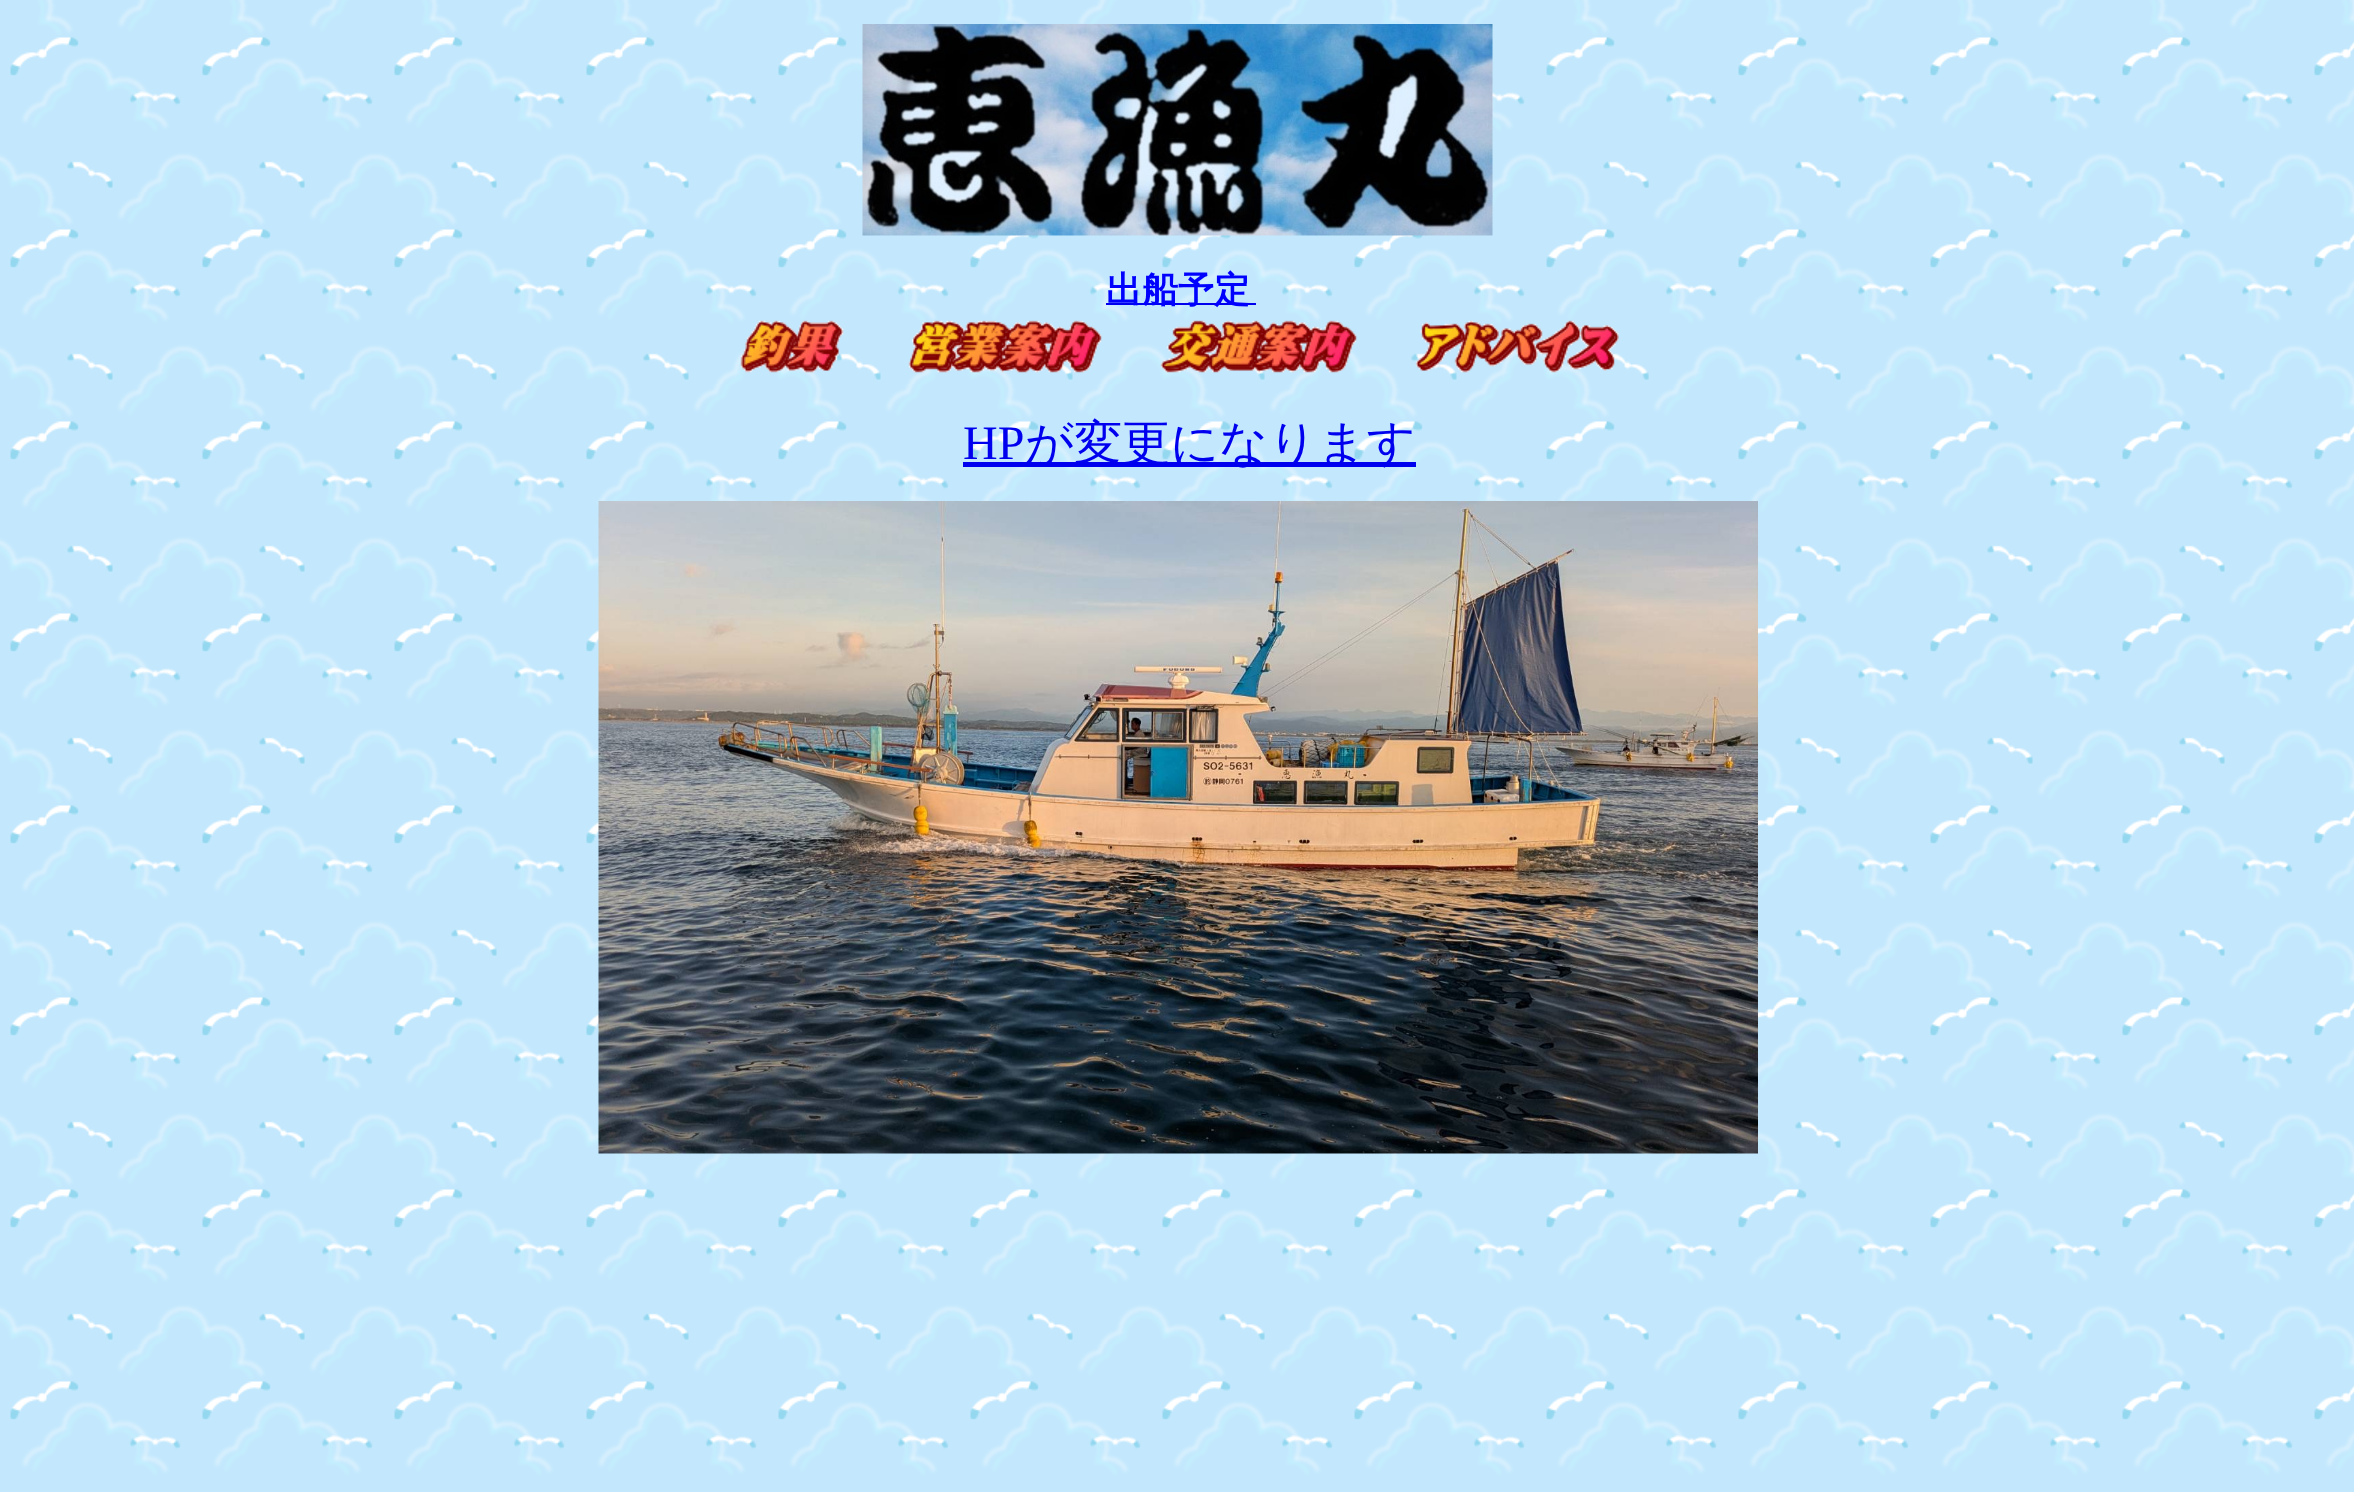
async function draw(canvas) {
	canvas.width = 2354;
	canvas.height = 1492;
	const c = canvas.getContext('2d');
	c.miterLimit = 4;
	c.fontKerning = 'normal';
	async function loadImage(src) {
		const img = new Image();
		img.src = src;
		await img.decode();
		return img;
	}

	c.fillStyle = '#fff';
	c.fillRect(0, 0, 2354, 1492);
	c.drawImage(await loadImage('img1.png'), 0, 0, 2354, 1492);
	c.drawImage(await loadImage('img2.png'), 862, 24, 631, 212);
	c.fillStyle = '#00e';
	c.fillRect(1106, 303, 150, 2);
	c.font = 'bold 36px WenQuanYi Zen Hei';
	c.fillStyle = '#00f';
	c.fillText('出船予定', 1106, 302);
	c.drawImage(await loadImage('img3.png'), 740, 320, 104, 53);
	c.drawImage(await loadImage('img4.png'), 908, 320, 194, 53);
	c.drawImage(await loadImage('img5.png'), 1160, 320, 197, 53);
	c.drawImage(await loadImage('img6.png'), 1415, 320, 204, 53);
	c.font = '48px Liberation Serif';
	c.fillStyle = '#00e';
	c.fillText('HP', 963, 459);
	c.fillRect(963, 462, 453, 5);
	c.font = '500 48px WenQuanYi Zen Hei';
	c.fillText('が変更になります', 1025, 459);
	c.drawImage(await loadImage('img7.png'), 598, 501, 1160, 653);
}

draw(document.querySelector('canvas'));
